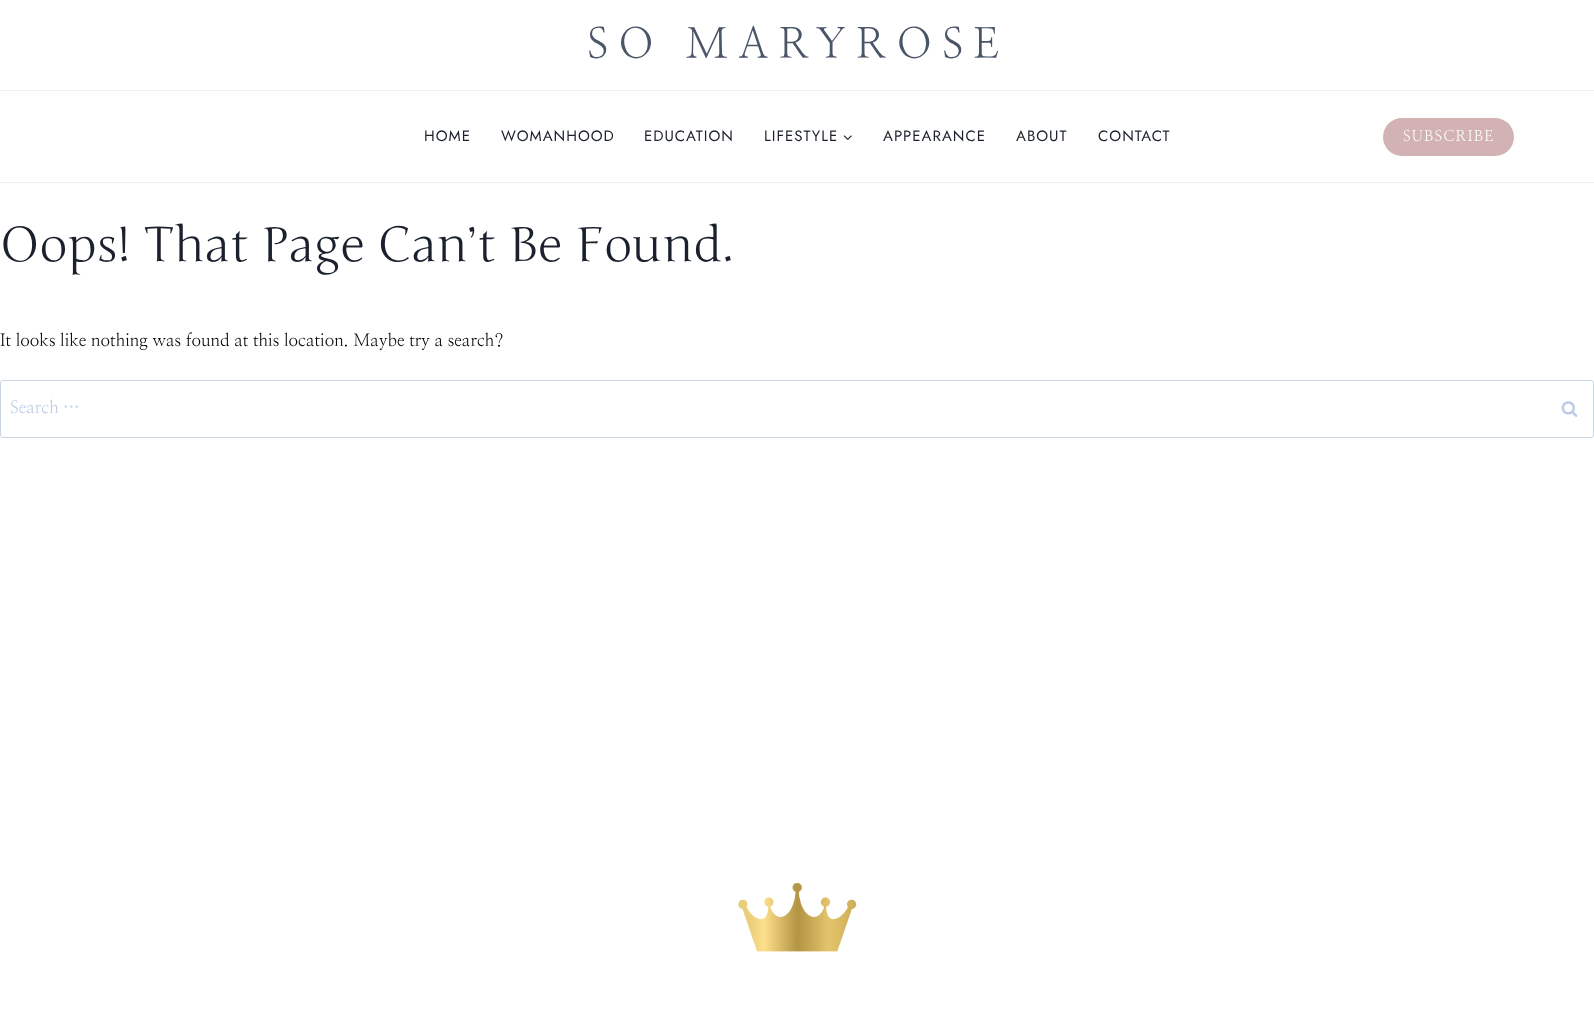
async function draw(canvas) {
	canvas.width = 1594;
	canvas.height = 1021;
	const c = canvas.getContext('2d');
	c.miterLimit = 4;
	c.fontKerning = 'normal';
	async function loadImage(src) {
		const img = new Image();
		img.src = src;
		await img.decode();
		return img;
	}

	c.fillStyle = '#fff';
	c.fillRect(0, 0, 1594, 1021);
	c.letterSpacing = '10px';
	c.font = '42px NanumMyeongjo';
	c.fillStyle = '#4a5568';
	c.fillText('SO MARYROSE', 587, 58);
	c.fillStyle = '#eee';
	c.fillRect(0, 90, 1594, 1);
	c.fillRect(0, 182, 1594, 1);
	c.letterSpacing = '1px';
	c.font = '15px Jost';
	c.fillStyle = '#1a202c';
	for (const [text, x, y] of [
		['HOME', 424, 141],
		['WOMANHOOD', 501, 141],
		['EDUCATION', 644, 141],
		['LIFESTYLE', 764, 141],
	]) {
		c.fillText(text, x, y);
	}
	c.drawImage(await loadImage('img1.png'), 843, 135, 9, 5);
	for (const [text, x, y] of [
		['APPEARANCE', 883, 141],
		['ABOUT', 1016, 141],
		['CONTACT', 1098, 141],
	]) {
		c.fillText(text, x, y);
	}
	c.fillStyle = '#d2b2b2';
	c.beginPath();
	c.roundRect(1383, 118, 131, 38, 19);
	c.fill();
	c.letterSpacing = '1.25px';
	c.font = '15px NanumMyeongjo';
	c.fillStyle = '#fff';
	c.fillText('SUBSCRIBE', 1403, 141);
	c.letterSpacing = '0px';
	c.font = '48px Junge';
	c.fillStyle = '#1a202c';
	c.fillText('Oops! That Page Can’t Be Found.', 0, 261);
	c.font = '17px NanumMyeongjo';
	c.fillStyle = '#020101';
	c.fillText('It looks like nothing was found at this location. Maybe try a search?', 0, 346);
	c.beginPath();
	c.roundRect(0.5, 380.5, 1593, 57, 2.5);
	c.strokeStyle = '#cbd5e0';
	c.stroke();
	c.fillStyle = '#bacce5';
	c.fillText('Search …', 10, 413);
	c.drawImage(await loadImage('img2.png'), 1561, 401, 17, 16);
	c.drawImage(await loadImage('img3.png'), 738, 882, 119, 70);
}

draw(document.querySelector('canvas'));
